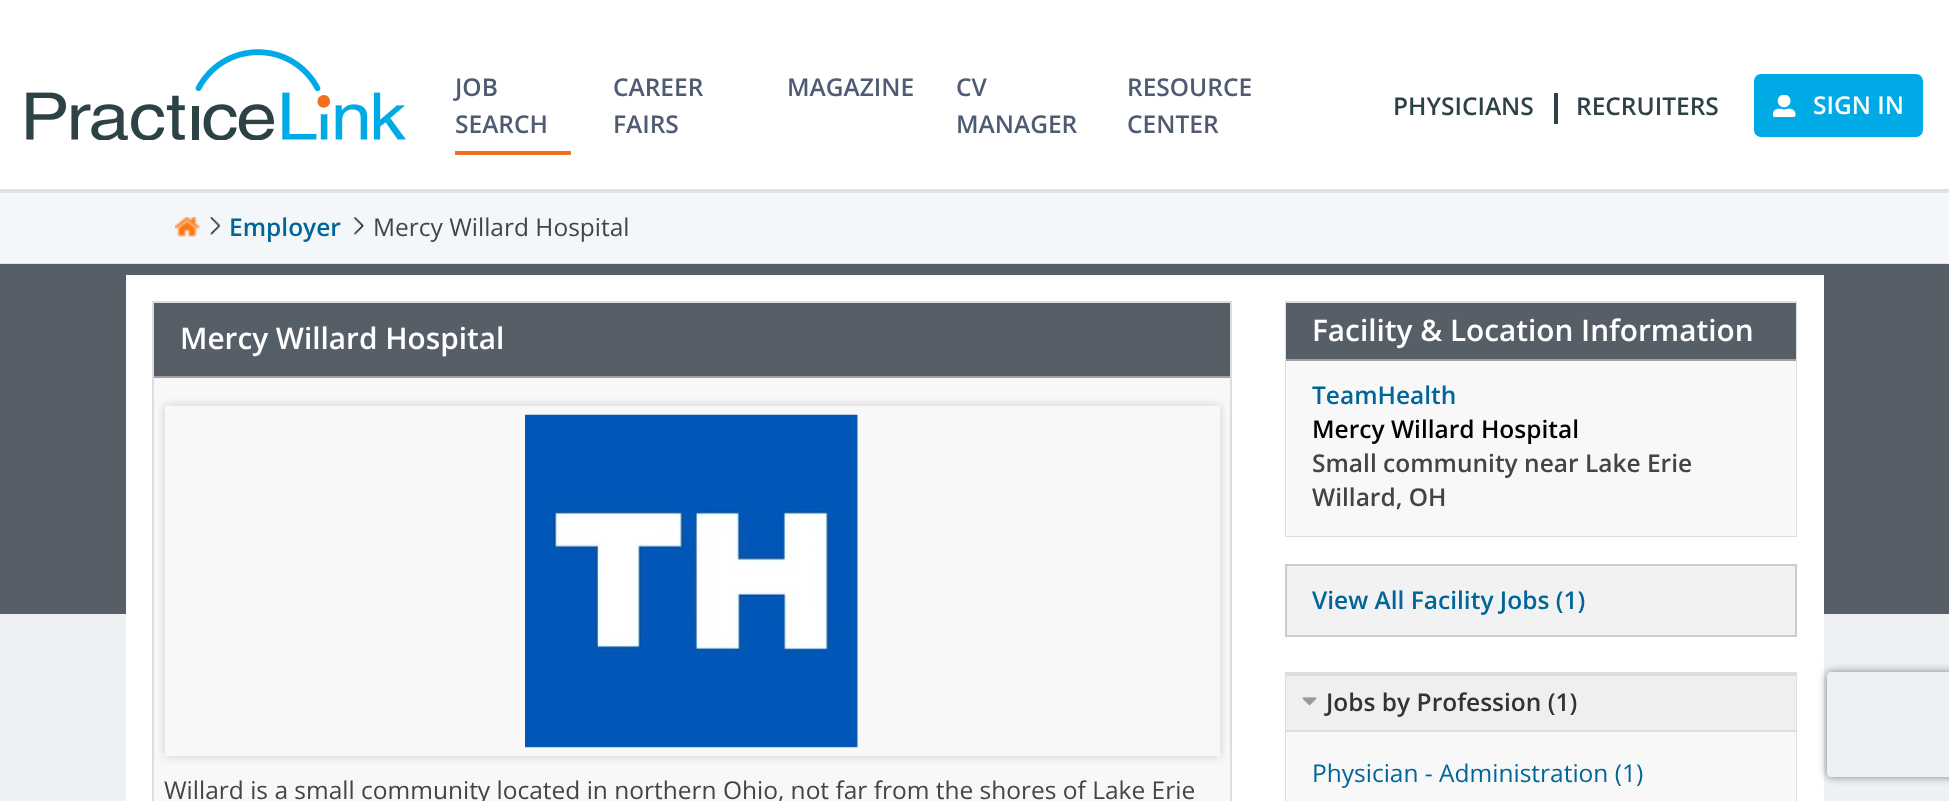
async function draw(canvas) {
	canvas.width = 1949;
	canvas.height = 801;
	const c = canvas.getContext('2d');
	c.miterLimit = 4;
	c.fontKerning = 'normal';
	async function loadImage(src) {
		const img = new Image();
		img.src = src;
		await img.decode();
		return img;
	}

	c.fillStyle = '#f4f7f9';
	c.fillRect(0, 0, 1949, 801);
	c.fillStyle = '#fff';
	c.fillRect(0, 0, 1949, 189);
	c.fillStyle = '#dfdfdf';
	c.fillRect(0, 189, 1949, 2);
	c.drawImage(await loadImage('img1.png'), 26, 49, 380, 91);
	c.fillStyle = '#f37021';
	c.fillRect(455, 151, 116, 4);
	c.font = '600 24.5px Open Sans';
	c.fillStyle = '#4e5b73';
	for (const [text, x, y] of [
		['JOB', 455, 96],
		['SEARCH', 455, 133],
		['CAREER', 613, 96],
		['FAIRS', 613, 133],
		['MAGAZINE', 787, 96],
		['CV', 956, 96],
		['MANAGER', 956, 133],
		['RESOURCE', 1127, 96],
		['CENTER', 1127, 133],
	]) {
		c.fillText(text, x, y);
	}
	c.fillStyle = '#2d4245';
	c.fillText('PHYSICIANS', 1393, 115);
	c.fillRect(1554, 93, 4, 31);
	c.fillText('RECRUITERS', 1576, 115);
	c.fillStyle = '#00aae7';
	c.beginPath();
	c.roundRect(1755, 75, 167, 61, 6);
	c.fill();
	c.strokeStyle = '#00aae7';
	c.lineWidth = 2;
	c.stroke();
	c.drawImage(await loadImage('img2.png'), 1773, 95, 23, 22);
	c.fillStyle = '#fff';
	c.fillText('SIGN IN', 1813, 114);
	c.fillStyle = '#e3e3e3';
	c.fillRect(0, 191, 1949, 2);
	c.fillRect(0, 263, 1949, 1);
	c.drawImage(await loadImage('img3.png'), 175, 217, 25, 20);
	c.drawImage(await loadImage('img4.png'), 210, 217, 11, 18);
	c.fillStyle = '#069';
	c.fillText('Employer', 229, 236);
	c.drawImage(await loadImage('img5.png'), 353, 217, 11, 18);
	c.font = '24.5px Open Sans';
	c.fillStyle = '#444';
	c.fillText('Mercy Willard Hospital', 373, 236);
	for (const [x, y, w, h, color] of [
		[0, 614, 1949, 187, '#edf1f3'],
		[0, 264, 1949, 350, '#565e67'],
		[126, 275, 1698, 526, '#fff'],
	]) {
		c.fillStyle = color;
		c.fillRect(x, y, w, h);
	}
	c.strokeStyle = '#ddd';
	c.strokeRect(153, 302, 1078, 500);
	c.fillStyle = '#565e67';
	c.fillRect(154, 303, 1076, 73);
	c.fillStyle = '#a1a1a1';
	c.fillRect(154, 376, 1076, 2);
	c.font = '600 29.75px Open Sans';
	c.fillStyle = '#fff';
	c.fillText('Mercy Willard Hospital', 180, 349);
	c.fillStyle = '#f8f8f8';
	c.fillRect(154, 378, 1076, 423);
	c.save();
	c.beginPath();
	c.moveTo(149, 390);
	c.lineTo(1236, 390);
	c.lineTo(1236, 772);
	c.lineTo(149, 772);
	c.closePath();
	c.moveTo(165, 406);
	c.lineTo(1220, 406);
	c.lineTo(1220, 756);
	c.lineTo(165, 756);
	c.closePath();
	c.clip('evenodd');
	c.fillStyle = '#ccc';
	c.filter = 'blur(5px)';
	c.beginPath();
	c.rect(165, 406, 1055, 350);
	c.fill();
	c.filter = 'none';
	c.restore();
	c.drawImage(await loadImage('img6.png'), 525, 414, 333, 334);
	c.font = '24.5px Open Sans';
	c.fillStyle = '#444';
	c.fillText('Willard is a small community located in northern Ohio, not far from the shores of Lake Erie', 164, 799);
	c.strokeRect(1286, 302, 510, 234);
	c.fillStyle = '#565e67';
	c.fillRect(1286, 303, 510, 56);
	c.fillStyle = '#a1a1a1';
	c.fillRect(1286, 359, 510, 2);
	c.font = '600 29.75px Open Sans';
	c.fillStyle = '#fff';
	c.fillText('Facility & Location Information', 1312, 341);
	c.fillStyle = '#f8f8f8';
	c.fillRect(1286, 361, 510, 175);
	c.font = '600 24.5px Open Sans';
	c.fillStyle = '#069';
	c.fillText('TeamHealth', 1312, 404);
	c.fillStyle = '#000';
	c.fillText('Mercy Willard Hospital', 1312, 438);
	c.fillStyle = '#444';
	c.fillText('Small community near Lake Erie', 1312, 472);
	c.fillText('Willard, OH', 1312, 506);
	c.fillStyle = '#f2f2f2';
	c.beginPath();
	c.rect(1286, 565, 510, 71);
	c.fill();
	c.strokeStyle = '#ccc';
	c.stroke();
	c.fillStyle = '#069';
	c.fillText('View All Facility Jobs (1)', 1312, 609);
	c.strokeStyle = '#ddd';
	c.strokeRect(1286, 673, 510, 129);
	for (const [x, y, w, h, color] of [
		[1286, 676, 510, 54, '#efefef'],
		[1286, 674, 510, 2, '#ddd'],
		[1286, 730, 510, 2, '#ddd'],
	]) {
		c.fillStyle = color;
		c.fillRect(x, y, w, h);
	}
	c.drawImage(await loadImage('img7.png'), 1302, 697, 15, 9);
	c.fillStyle = '#333';
	c.fillText('Jobs by Profession (1)', 1326, 711);
	c.fillStyle = '#f8f8f8';
	c.fillRect(1286, 732, 510, 69);
	c.font = '24.5px Open Sans';
	c.fillStyle = '#069';
	c.fillText('Physician - Administration (1)', 1312, 782);
	c.save();
	c.beginPath();
	c.moveTo(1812, 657);
	c.lineTo(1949, 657);
	c.lineTo(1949, 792);
	c.lineTo(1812, 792);
	c.closePath();
	c.moveTo(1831, 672);
	c.lineTo(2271, 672);
	c.bezierCurveTo(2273, 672, 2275, 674, 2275, 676);
	c.lineTo(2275, 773);
	c.bezierCurveTo(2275, 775, 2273, 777, 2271, 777);
	c.lineTo(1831, 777);
	c.bezierCurveTo(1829, 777, 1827, 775, 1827, 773);
	c.lineTo(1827, 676);
	c.bezierCurveTo(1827, 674, 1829, 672, 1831, 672);
	c.closePath();
	c.clip('evenodd');
	c.fillStyle = '#808080';
	c.filter = 'blur(4.5px)';
	c.beginPath();
	c.roundRect(1827, 672, 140, 105, 4);
	c.fill();
	c.filter = 'none';
	c.restore();
}

draw(document.querySelector('canvas'));
